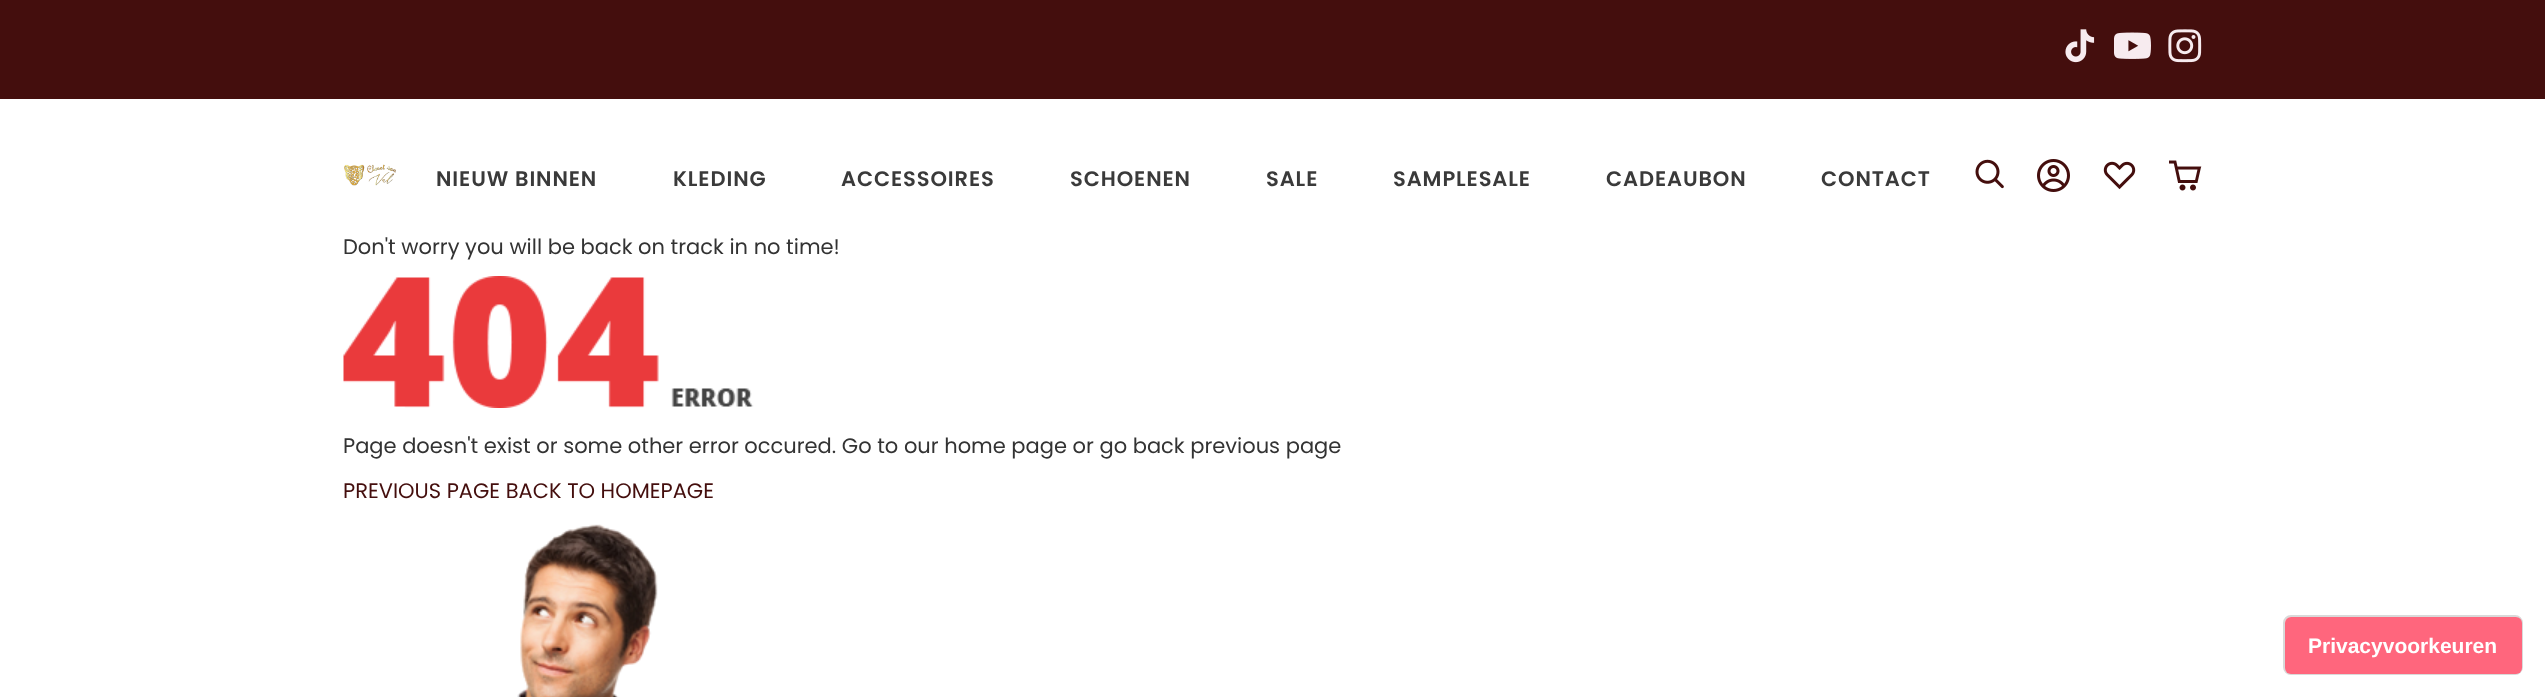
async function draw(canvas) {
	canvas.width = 2545;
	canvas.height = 697;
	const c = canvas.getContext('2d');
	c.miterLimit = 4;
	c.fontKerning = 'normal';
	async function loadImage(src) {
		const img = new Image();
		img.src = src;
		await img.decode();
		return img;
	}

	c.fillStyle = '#fff';
	c.fillRect(0, 0, 2545, 697);
	c.fillStyle = '#440e0d';
	c.fillRect(0, 0, 2545, 99);
	c.drawImage(await loadImage('img1.png'), 2065, 29, 30, 34);
	c.drawImage(await loadImage('img2.png'), 2114, 32, 37, 27);
	c.drawImage(await loadImage('img3.png'), 2168, 29, 34, 34);
	c.drawImage(await loadImage('img4.png'), 344, 164, 52, 22);
	c.letterSpacing = '0.9px';
	c.font = '600 21px Poppins';
	c.fillStyle = '#3a3a3a';
	for (const [text, x, y] of [
		['NIEUW BINNEN', 436, 186],
		['KLEDING', 673, 186],
		['ACCESSOIRES', 841, 186],
		['SCHOENEN', 1070, 186],
		['SALE', 1266, 186],
		['SAMPLESALE', 1393, 186],
		['CADEAUBON', 1606, 186],
		['CONTACT', 1821, 186],
	]) {
		c.fillText(text, x, y);
	}
	c.drawImage(await loadImage('img5.png'), 1975, 159, 29, 30);
	c.drawImage(await loadImage('img6.png'), 2037, 159, 33, 33);
	c.drawImage(await loadImage('img7.png'), 2103, 161, 33, 29);
	c.drawImage(await loadImage('img8.png'), 2169, 160, 33, 31);
	c.letterSpacing = '0px';
	c.font = '21px Poppins';
	c.fillStyle = '#333';
	c.fillText('Don\'t worry you will be back on track in no time!', 343, 254);
	c.drawImage(await loadImage('img9.png'), 343, 276, 411, 132);
	c.fillText('Page doesn\'t exist or some other error occured. Go to our home page or go back previous page', 343, 453);
	c.fillStyle = '#440e0d';
	c.fillText('PREVIOUS PAGE BACK TO HOMEPAGE', 343, 498);
	c.drawImage(await loadImage('img10.png'), 517, 524, 141, 173);
	c.beginPath();
	c.roundRect(2284, 616, 238, 58, 7);
	c.strokeStyle = '#d9d9d9';
	c.lineWidth = 2;
	c.stroke();
	c.fillStyle = '#ff667d';
	c.beginPath();
	c.roundRect(2285, 617, 237, 57, 6);
	c.fill();
	c.font = 'bold 21px Liberation Sans';
	c.fillStyle = '#fff';
	c.fillText('Privacyvoorkeuren', 2308, 653);
}

draw(document.querySelector('canvas'));
